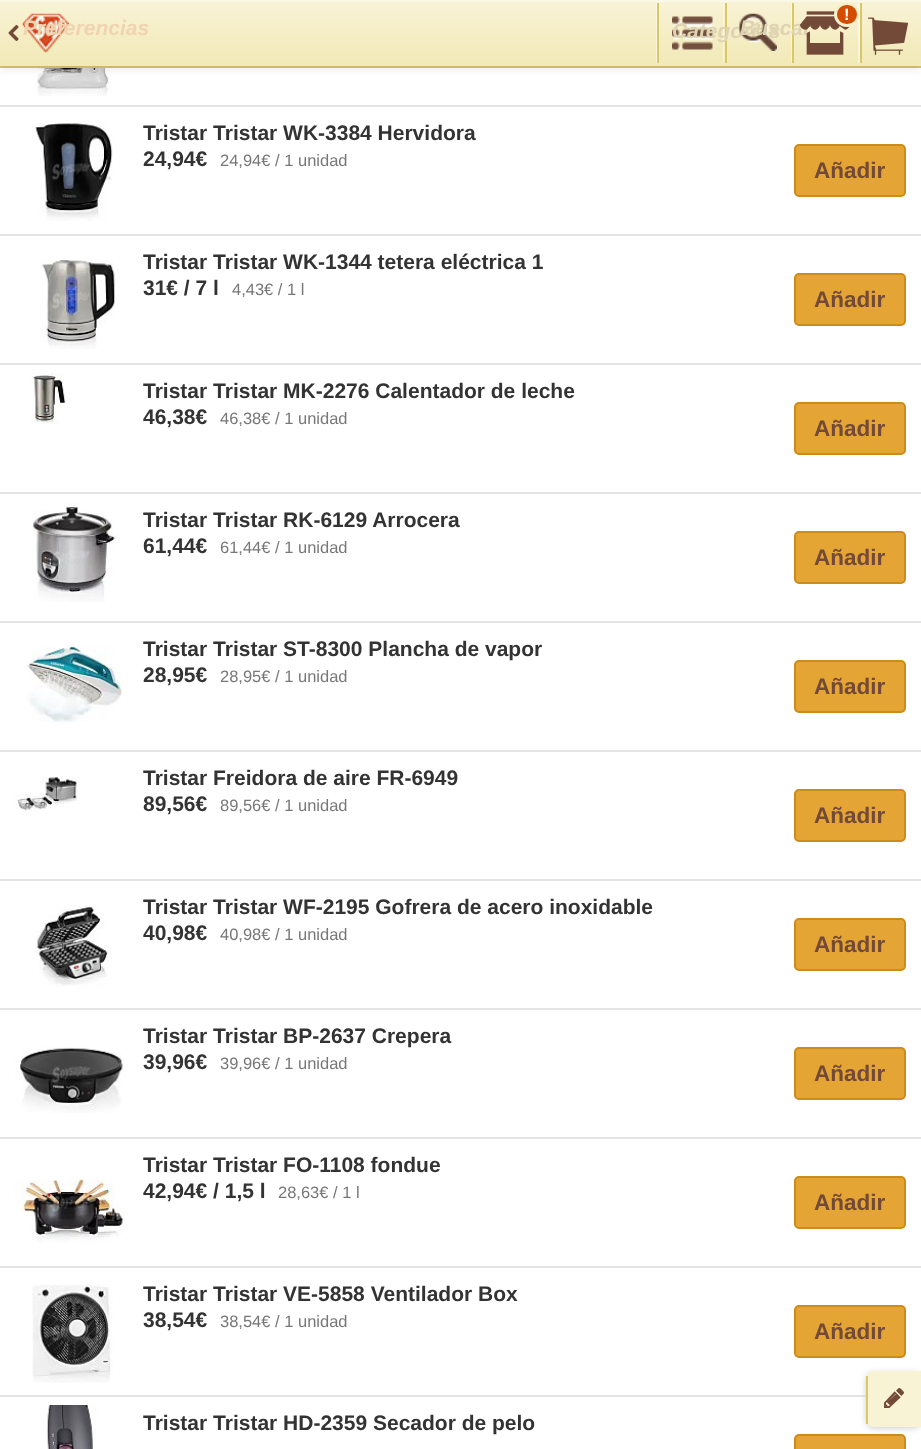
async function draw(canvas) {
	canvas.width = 921;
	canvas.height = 1449;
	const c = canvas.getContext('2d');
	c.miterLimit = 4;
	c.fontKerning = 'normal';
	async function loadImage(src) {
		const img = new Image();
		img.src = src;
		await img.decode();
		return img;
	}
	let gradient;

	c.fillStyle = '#fff';
	c.fillRect(0, 0, 921, 1449);
	c.fillStyle = '#d9c768';
	c.fillRect(0, 66, 921, 2);
	c.drawImage(await loadImage('img7.png'), 29, 68, 83, 28);
	c.fillStyle = '#0000001a';
	c.filter = 'blur(5px)';
	c.beginPath();
	c.rect(0, 2, 921, 66);
	c.fill();
	c.filter = 'none';
	gradient = c.createLinearGradient(461, 0, 461, 66);
	gradient.addColorStop(0, '#f9f3d7');
	gradient.addColorStop(1, '#f1e9b6');
	c.fillStyle = gradient;
	c.fillRect(0, 2, 921, 64);
	gradient = c.createLinearGradient(461, 0, 461, 66);
	gradient.addColorStop(0, '#fcf9eb');
	gradient.addColorStop(1, '#f8f4db');
	c.fillStyle = gradient;
	c.fillRect(791, 3, 1, 60);
	c.fillRect(723, 3, 1, 60);
	c.fillRect(656, 3, 1, 60);
	c.fillStyle = '#fbf8e7';
	c.fillRect(0, 0, 921, 2);
	c.drawImage(await loadImage('img1.png'), 8, 25, 11, 16);
	c.drawImage(await loadImage('img2.png'), 22, 13, 47, 40);
	c.font = 'italic bold 21px Liberation Sans';
	c.fillStyle = '#f0d3b1';
	c.fillText('Preferencias', 23, 35);
	c.fillStyle = '#d9c768';
	c.fillRect(792, 3, 2, 60);
	c.fillRect(725, 3, 2, 60);
	c.drawImage(await loadImage('img6.png'), 672, 16, 41, 34);
	c.fillStyle = '#dfd4b2';
	c.fillText('Categorías', 672, 38);
	c.drawImage(await loadImage('img5.png'), 739, 13, 38, 38);
	c.fillText('Buscar', 740, 35);
	c.drawImage(await loadImage('img3.png'), 800, 11, 50, 44);
	c.fillStyle = '#ffffff80';
	c.fillRect(858, 3, 2, 60);
	c.fillStyle = '#d44c00';
	c.beginPath();
	c.roundRect(835.5, 3.5, 23, 22, 11);
	c.fill();
	c.strokeStyle = '#f6f0cd';
	c.lineWidth = 3;
	c.stroke();
	c.font = 'bold 16.5px Liberation Sans';
	c.fillStyle = '#fff';
	c.fillText('!', 844, 20);
	c.fillStyle = '#d9c768';
	c.fillRect(860, 3, 2, 60);
	c.drawImage(await loadImage('img4.png'), 868, 17, 41, 38);
	c.fillRect(657, 3, 2, 60);
	c.fillStyle = '#e4e4e4';
	c.fillRect(0, 105, 921, 2);
	c.drawImage(await loadImage('img8.png'), 32, 123, 81, 98);
	c.font = 'bold 21px Liberation Sans';
	c.fillStyle = '#333';
	c.fillText('Tristar Tristar WK-3384 Hervidora', 143, 140);
	c.fillText('24,94€', 143, 166);
	c.font = '16.5px Liberation Sans';
	c.fillStyle = '#777';
	c.fillText('24,94€ / 1 unidad', 220, 166);
	c.fillStyle = '#e5a535';
	c.beginPath();
	c.roundRect(795, 145, 110, 51, 4);
	c.fill();
	c.strokeStyle = '#cd8c1a';
	c.lineWidth = 2;
	c.stroke();
	c.font = 'bold 22.5px Liberation Sans';
	c.fillStyle = '#734937';
	c.fillText('Añadir', 814, 178);
	c.fillStyle = '#e4e4e4';
	c.fillRect(0, 234, 921, 2);
	c.drawImage(await loadImage('img9.png'), 40, 260, 75, 89);
	c.font = 'bold 21px Liberation Sans';
	c.fillStyle = '#333';
	c.fillText('Tristar Tristar WK-1344 tetera eléctrica 1', 143, 269);
	c.fillText('31€ / 7 l', 143, 295);
	c.font = '16.5px Liberation Sans';
	c.fillStyle = '#777';
	c.fillText('4,43€ / 1 l', 232, 295);
	c.fillStyle = '#e5a535';
	c.beginPath();
	c.roundRect(795, 274, 110, 51, 4);
	c.fill();
	c.stroke();
	c.font = 'bold 22.5px Liberation Sans';
	c.fillStyle = '#734937';
	c.fillText('Añadir', 814, 307);
	c.fillStyle = '#e4e4e4';
	c.fillRect(0, 363, 921, 2);
	c.drawImage(await loadImage('img10.png'), 31, 373, 40, 51);
	c.font = 'bold 21px Liberation Sans';
	c.fillStyle = '#333';
	c.fillText('Tristar Tristar MK-2276 Calentador de leche', 143, 398);
	c.fillText('46,38€', 143, 424);
	c.font = '16.5px Liberation Sans';
	c.fillStyle = '#777';
	c.fillText('46,38€ / 1 unidad', 220, 424);
	c.fillStyle = '#e5a535';
	c.beginPath();
	c.roundRect(795, 403, 110, 51, 4);
	c.fill();
	c.stroke();
	c.font = 'bold 22.5px Liberation Sans';
	c.fillStyle = '#734937';
	c.fillText('Añadir', 814, 436);
	c.fillStyle = '#e4e4e4';
	c.fillRect(0, 492, 921, 2);
	c.drawImage(await loadImage('img11.png'), 32, 503, 87, 99);
	c.font = 'bold 21px Liberation Sans';
	c.fillStyle = '#333';
	c.fillText('Tristar Tristar RK-6129 Arrocera', 143, 527);
	c.fillText('61,44€', 143, 553);
	c.font = '16.5px Liberation Sans';
	c.fillStyle = '#777';
	c.fillText('61,44€ / 1 unidad', 220, 553);
	c.fillStyle = '#e5a535';
	c.beginPath();
	c.roundRect(795, 532, 110, 51, 4);
	c.fill();
	c.stroke();
	c.font = 'bold 22.5px Liberation Sans';
	c.fillStyle = '#734937';
	c.fillText('Añadir', 814, 565);
	c.fillStyle = '#e4e4e4';
	c.fillRect(0, 621, 921, 2);
	c.drawImage(await loadImage('img12.png'), 26, 645, 101, 78);
	c.font = 'bold 21px Liberation Sans';
	c.fillStyle = '#333';
	c.fillText('Tristar Tristar ST-8300 Plancha de vapor', 143, 656);
	c.fillText('28,95€', 143, 682);
	c.font = '16.5px Liberation Sans';
	c.fillStyle = '#777';
	c.fillText('28,95€ / 1 unidad', 220, 682);
	c.fillStyle = '#e5a535';
	c.beginPath();
	c.roundRect(795, 661, 110, 51, 4);
	c.fill();
	c.stroke();
	c.font = 'bold 22.5px Liberation Sans';
	c.fillStyle = '#734937';
	c.fillText('Añadir', 814, 694);
	c.fillStyle = '#e4e4e4';
	c.fillRect(0, 750, 921, 2);
	c.drawImage(await loadImage('img13.png'), 15, 776, 63, 39);
	c.font = 'bold 21px Liberation Sans';
	c.fillStyle = '#333';
	c.fillText('Tristar Freidora de aire FR-6949', 143, 785);
	c.fillText('89,56€', 143, 811);
	c.font = '16.5px Liberation Sans';
	c.fillStyle = '#777';
	c.fillText('89,56€ / 1 unidad', 220, 811);
	c.fillStyle = '#e5a535';
	c.beginPath();
	c.roundRect(795, 790, 110, 51, 4);
	c.fill();
	c.stroke();
	c.font = 'bold 22.5px Liberation Sans';
	c.fillStyle = '#734937';
	c.fillText('Añadir', 814, 823);
	c.fillStyle = '#e4e4e4';
	c.fillRect(0, 879, 921, 2);
	c.drawImage(await loadImage('img14.png'), 35, 905, 77, 82);
	c.font = 'bold 21px Liberation Sans';
	c.fillStyle = '#333';
	c.fillText('Tristar Tristar WF-2195 Gofrera de acero inoxidable', 143, 914);
	c.fillText('40,98€', 143, 940);
	c.font = '16.5px Liberation Sans';
	c.fillStyle = '#777';
	c.fillText('40,98€ / 1 unidad', 220, 940);
	c.fillStyle = '#e5a535';
	c.beginPath();
	c.roundRect(795, 919, 110, 51, 4);
	c.fill();
	c.stroke();
	c.font = 'bold 22.5px Liberation Sans';
	c.fillStyle = '#734937';
	c.fillText('Añadir', 814, 952);
	c.fillStyle = '#e4e4e4';
	c.fillRect(0, 1008, 921, 2);
	c.font = 'bold 21px Liberation Sans';
	c.fillStyle = '#333';
	c.fillText('Tristar Tristar BP-2637 Crepera', 143, 1043);
	c.drawImage(await loadImage('img15.png'), 15, 1047, 110, 66);
	c.fillText('39,96€', 143, 1069);
	c.font = '16.5px Liberation Sans';
	c.fillStyle = '#777';
	c.fillText('39,96€ / 1 unidad', 220, 1069);
	c.fillStyle = '#e5a535';
	c.beginPath();
	c.roundRect(795, 1048, 110, 51, 4);
	c.fill();
	c.stroke();
	c.font = 'bold 22.5px Liberation Sans';
	c.fillStyle = '#734937';
	c.fillText('Añadir', 814, 1081);
	c.fillStyle = '#e4e4e4';
	c.fillRect(0, 1137, 921, 2);
	c.font = 'bold 21px Liberation Sans';
	c.fillStyle = '#333';
	c.fillText('Tristar Tristar FO-1108 fondue', 143, 1172);
	c.drawImage(await loadImage('img16.png'), 15, 1179, 111, 64);
	c.fillText('42,94€ / 1,5 l', 143, 1198);
	c.font = '16.5px Liberation Sans';
	c.fillStyle = '#777';
	c.fillText('28,63€ / 1 l', 278, 1198);
	c.fillStyle = '#e5a535';
	c.beginPath();
	c.roundRect(795, 1177, 110, 51, 4);
	c.fill();
	c.stroke();
	c.font = 'bold 22.5px Liberation Sans';
	c.fillStyle = '#734937';
	c.fillText('Añadir', 814, 1210);
	c.fillStyle = '#e4e4e4';
	c.fillRect(0, 1266, 921, 2);
	c.drawImage(await loadImage('img17.png'), 32, 1284, 81, 99);
	c.font = 'bold 21px Liberation Sans';
	c.fillStyle = '#333';
	c.fillText('Tristar Tristar VE-5858 Ventilador Box', 143, 1301);
	c.fillText('38,54€', 143, 1327);
	c.font = '16.5px Liberation Sans';
	c.fillStyle = '#777';
	c.fillText('38,54€ / 1 unidad', 220, 1327);
	c.fillStyle = '#e5a535';
	c.beginPath();
	c.roundRect(795, 1306, 110, 51, 4);
	c.fill();
	c.stroke();
	c.font = 'bold 22.5px Liberation Sans';
	c.fillStyle = '#734937';
	c.fillText('Añadir', 814, 1339);
	c.fillStyle = '#e4e4e4';
	c.fillRect(0, 1395, 866, 2);
	c.drawImage(await loadImage('img18.png'), 46, 1405, 51, 44);
	c.font = 'bold 21px Liberation Sans';
	c.fillStyle = '#333';
	c.fillText('Tristar Tristar HD-2359 Secador de pelo', 143, 1430);
	c.fillStyle = '#e5a535';
	c.beginPath();
	c.roundRect(795, 1435, 110, 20, 4);
	c.fill();
	c.stroke();
	c.fillStyle = '#ccc';
	c.filter = 'blur(3px)';
	c.beginPath();
	c.roundRect(866, 1373, 55, 55, 8);
	c.fill();
	c.filter = 'none';
	c.fillStyle = '#f8f3d5';
	c.beginPath();
	c.roundRect(866, 1371, 55, 56, [8, 0, 0, 8]);
	c.fill();
	c.fillStyle = '#d9c768';
	c.fillRect(866, 1376, 2, 48);
	c.drawImage(await loadImage('img19.png'), 884, 1388, 20, 20);
}

draw(document.querySelector('canvas'));
